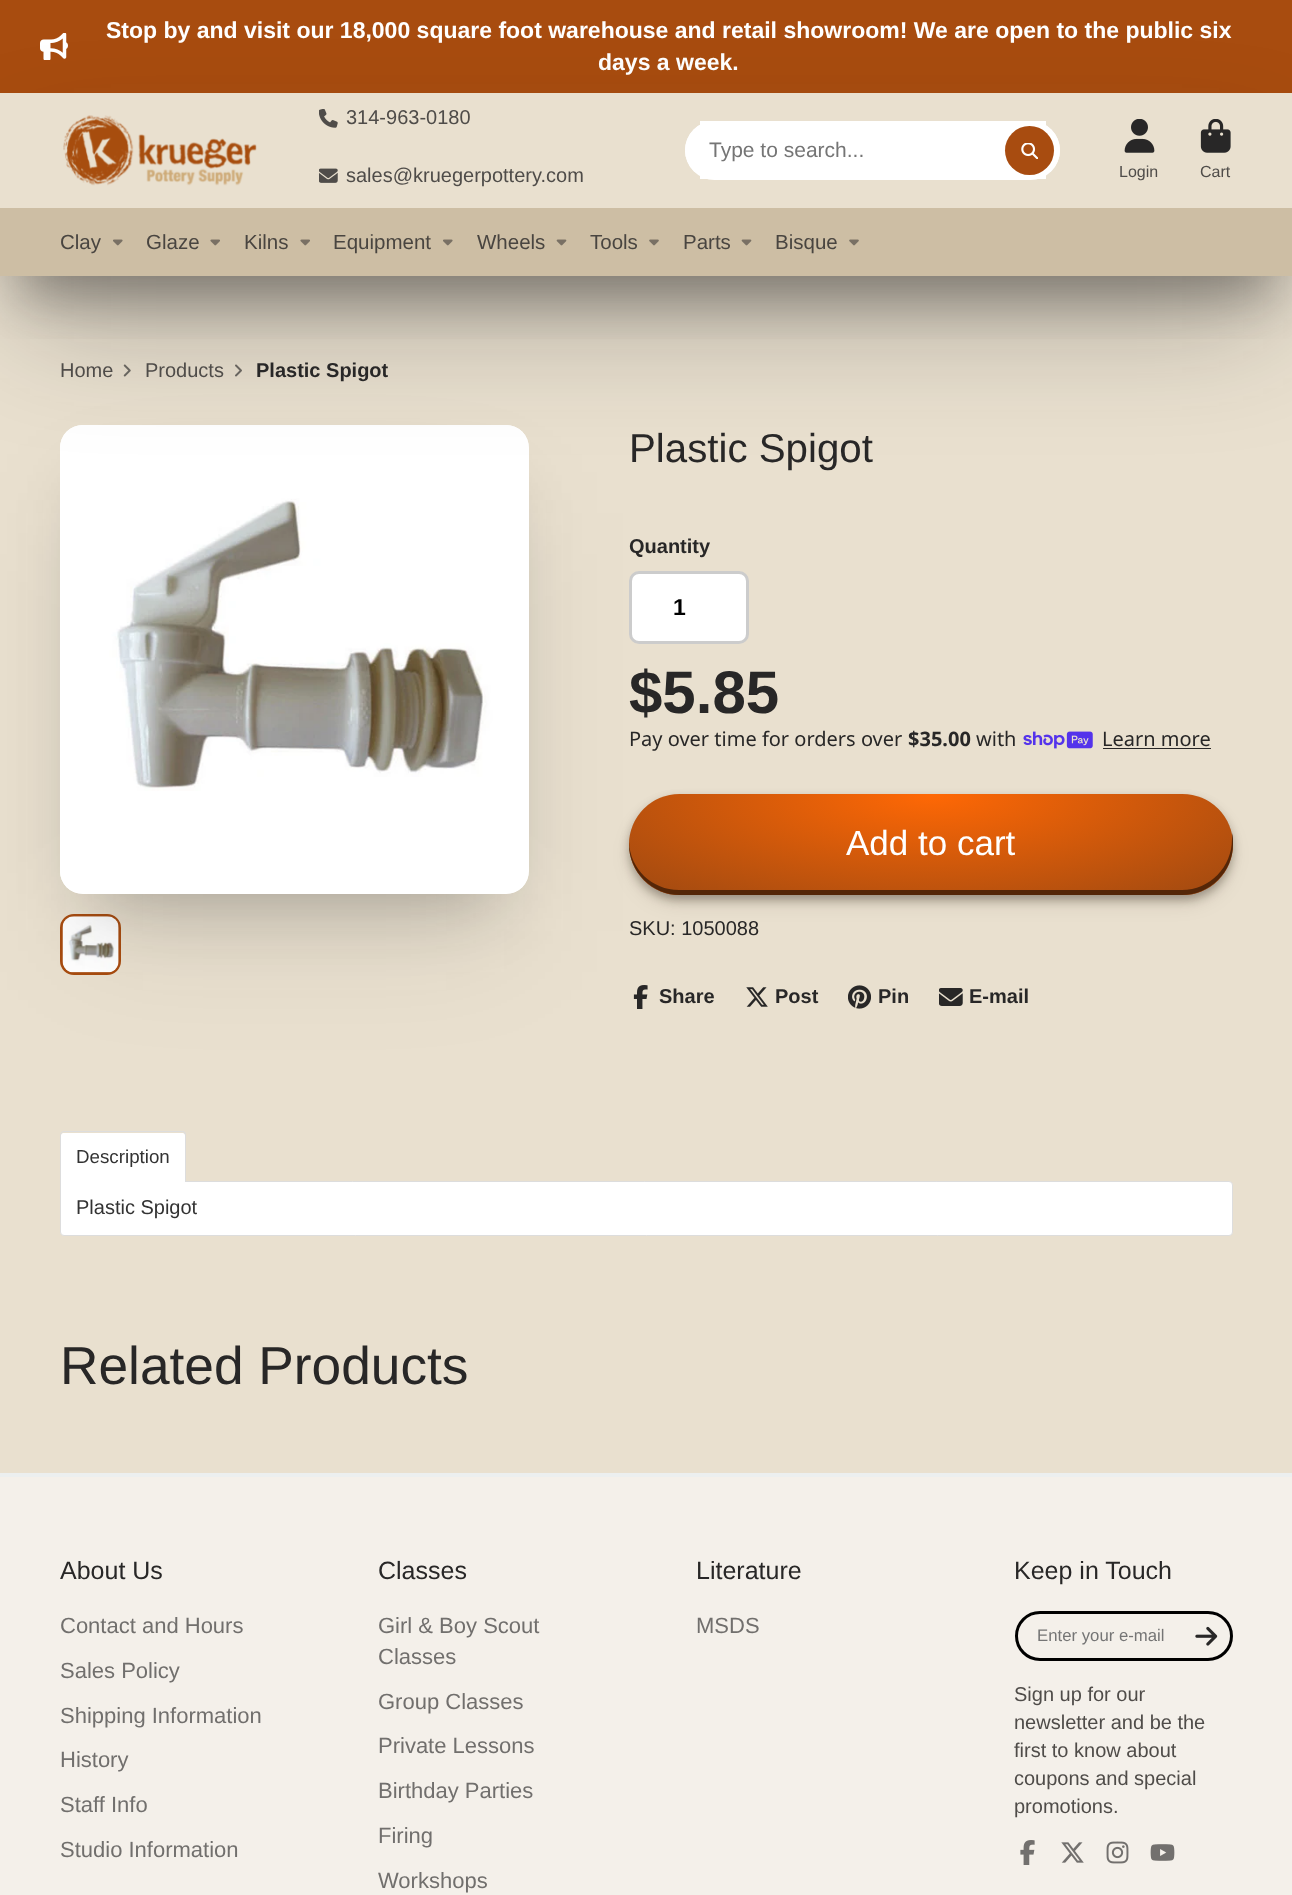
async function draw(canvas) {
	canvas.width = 1292;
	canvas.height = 1895;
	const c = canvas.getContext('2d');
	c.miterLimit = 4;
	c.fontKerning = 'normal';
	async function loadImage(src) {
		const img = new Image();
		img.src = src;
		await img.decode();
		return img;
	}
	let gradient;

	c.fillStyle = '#e9e0cf';
	c.fillRect(0, 0, 1292, 1895);
	c.fillStyle = '#a84c0f';
	c.fillRect(0, 0, 1292, 93);
	c.drawImage(await loadImage('img1.png'), 40, 33, 28, 27);
	c.font = 'bold 23px Liberation Sans';
	c.fillStyle = '#fff';
	c.fillText('Stop by and visit our 18,000 square foot warehouse and retail showroom! We are open to the public six', 106, 38);
	c.fillText('days a week.', 598, 70);
	c.drawImage(await loadImage('img12.png'), 123, 364, 8, 13);
	c.drawImage(await loadImage('img13.png'), 235, 364, 7, 13);
	c.save();
	c.beginPath();
	c.rect(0, 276, 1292, 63);
	c.clip();
	c.fillStyle = '#1b1a1a66';
	c.filter = 'blur(27.5px)';
	c.beginPath();
	c.rect(20, 150, 1253, 144);
	c.fill();
	c.filter = 'none';
	c.restore();
	c.beginPath();
	c.roundRect(61.5, 915.5, 58, 58, 12.5);
	c.strokeStyle = '#a84c10';
	c.lineWidth = 3;
	c.stroke();
	c.drawImage(await loadImage('img15.png'), 62, 916, 57, 57);
	c.fillStyle = '#1b1a1a4d';
	c.filter = 'blur(37.5px)';
	c.beginPath();
	c.rect(98, 500, 393, 394);
	c.fill();
	c.filter = 'none';
	c.fillStyle = '#1b1a1a1a';
	c.filter = 'blur(62.5px)';
	c.beginPath();
	c.rect(85, 513, 419, 418);
	c.fill();
	c.filter = 'none';
	c.fillStyle = '#fff';
	c.beginPath();
	c.roundRect(60, 425, 469, 469, 23);
	c.fill();
	c.drawImage(await loadImage('img14.png'), 60, 425, 469, 469);
	c.save();
	c.beginPath();
	c.moveTo(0, 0);
	c.lineTo(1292, 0);
	c.lineTo(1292, 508);
	c.lineTo(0, 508);
	c.closePath();
	c.moveTo(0, 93);
	c.lineTo(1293, 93);
	c.lineTo(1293, 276);
	c.lineTo(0, 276);
	c.closePath();
	c.clip('evenodd');
	c.fillStyle = '#1b1a1a4d';
	c.filter = 'blur(62.5px)';
	c.beginPath();
	c.rect(20, 175, 1253, 144);
	c.fill();
	c.filter = 'none';
	c.restore();
	c.drawImage(await loadImage('img2.png'), 63, 115, 194, 71);
	c.drawImage(await loadImage('img3.png'), 319, 109, 19, 19);
	c.font = '20px Liberation Sans';
	c.fillStyle = '#4f4c49';
	c.fillText('314-963-0180', 346, 124);
	c.drawImage(await loadImage('img4.png'), 319, 168, 19, 15);
	c.fillText('sales@kruegerpottery.com', 346, 182);
	c.fillStyle = '#fff';
	c.beginPath();
	c.roundRect(685, 121, 375, 58, 29);
	c.fill();
	c.fillRect(700, 121, 346, 58);
	c.beginPath();
	c.roundRect(685, 121, 375, 59, 29.5);
	c.fill();
	c.font = '21px Liberation Sans';
	c.fillStyle = '#757575';
	c.fillText('Type to search...', 709, 157);
	c.fillStyle = '#a84c10';
	c.beginPath();
	c.arc(1029.5, 150.5, 24.5, 0, 2 * Math.PI);
	c.fill();
	c.drawImage(await loadImage('img5.png'), 1021, 143, 17, 16);
	c.drawImage(await loadImage('img6.png'), 1124, 119, 31, 34);
	c.font = '16px Liberation Sans';
	c.fillStyle = '#4f4c49';
	c.fillText('Login', 1119, 177);
	c.drawImage(await loadImage('img7.png'), 1200, 119, 31, 34);
	c.fillText('Cart', 1200, 177);
	c.fillStyle = '#cdbea4';
	c.fillRect(0, 208, 1292, 68);
	c.font = '20.5px Liberation Sans';
	c.fillStyle = '#494540';
	c.fillText('Clay', 60, 249);
	c.drawImage(await loadImage('img8.png'), 113, 239, 10, 7);
	c.fillText('Glaze', 146, 249);
	c.drawImage(await loadImage('img9.png'), 210, 239, 10, 7);
	c.fillText('Kilns', 244, 249);
	c.drawImage(await loadImage('img9.png'), 300, 239, 10, 7);
	c.fillText('Equipment', 333, 249);
	c.drawImage(await loadImage('img8.png'), 443, 239, 10, 7);
	c.fillText('Wheels', 477, 249);
	c.drawImage(await loadImage('img10.png'), 556, 239, 11, 7);
	c.fillText('Tools', 590, 249);
	c.drawImage(await loadImage('img11.png'), 649, 239, 10, 7);
	c.fillText('Parts', 683, 249);
	c.drawImage(await loadImage('img10.png'), 741, 239, 11, 7);
	c.fillText('Bisque', 775, 249);
	c.drawImage(await loadImage('img11.png'), 849, 239, 10, 7);
	c.font = '20px Liberation Sans';
	c.fillStyle = '#4f4c49';
	c.fillText('Home', 60, 377);
	c.fillText('Products', 145, 377);
	c.font = 'bold 20px Liberation Sans';
	c.fillStyle = '#282727';
	c.fillText('Plastic Spigot', 256, 377);
	c.font = '40.25px Liberation Sans';
	c.fillText('Plastic Spigot', 629, 462);
	c.font = 'bold 20px Liberation Sans';
	c.fillText('Quantity', 629, 553);
	c.fillStyle = '#fff';
	c.beginPath();
	c.roundRect(630.5, 572.5, 117, 70, 8.5);
	c.fill();
	c.strokeStyle = '#ccc';
	c.stroke();
	c.font = 'bold 23px Liberation Sans';
	c.fillStyle = '#000';
	c.fillText('1', 673, 615);
	c.font = 'bold 60px Liberation Sans';
	c.fillStyle = '#282727';
	c.fillText('$5.85', 629, 713);
	c.font = '20px Noto Sans';
	c.fillText('Pay over time for orders over', 629, 746);
	c.font = 'bold 20px Noto Sans';
	c.fillText('$35.00', 908, 746);
	c.font = '20px Noto Sans';
	c.fillText('with', 976, 746);
	c.drawImage(await loadImage('img16.png'), 1023, 731, 70, 18);
	c.fillText('Learn more', 1102, 746);
	c.fillRect(1103, 748, 108, 1);
	c.fillStyle = '#1c0d0326';
	c.filter = 'blur(10.5px)';
	c.beginPath();
	c.roundRect(634, 810, 594, 90, 45);
	c.fill();
	c.filter = 'none';
	c.fillStyle = '#1c0d034d';
	c.filter = 'blur(5px)';
	c.beginPath();
	c.roundRect(629, 799, 604, 101, 50.5);
	c.fill();
	c.filter = 'none';
	c.save();
	c.beginPath();
	c.roundRect(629, 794, 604, 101, 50.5);
	c.clip();
	c.fillStyle = '#1c0d0326';
	c.filter = 'blur(10.5px)';
	c.beginPath();
	c.roundRect(634, 810, 594, 90, 45);
	c.fill();
	c.filter = 'none';
	c.fillStyle = '#1c0d034d';
	c.filter = 'blur(5px)';
	c.beginPath();
	c.roundRect(629, 799, 604, 101, 50.5);
	c.fill();
	c.filter = 'none';
	c.restore();
	gradient = c.createRadialGradient(931, 2370.9, 0, 931, 2370.9, 427);
	gradient.addColorStop(0, '#ff6805');
	gradient.addColorStop(0.9, '#a84c10');
	c.fillStyle = gradient;
	c.beginPath();
	c.roundRect(629, 794, 604, 101, 50.5);
	c.save();
	c.clip();
	c.scale(1, 143 / 427);
	c.fillRect(0, 0, 1292, 5659);
	c.restore();
	c.fillStyle = '#542608';
	c.beginPath();
	c.moveTo(629, 842);
	c.lineTo(629, 844);
	c.bezierCurveTo(629, 872, 652, 895, 680, 895);
	c.lineTo(1182, 895);
	c.bezierCurveTo(1210, 895, 1233, 872, 1233, 844);
	c.bezierCurveTo(1233, 840, 1233, 837, 1232, 833);
	c.lineTo(1232, 839);
	c.bezierCurveTo(1232, 867, 1210, 890, 1182, 890);
	c.lineTo(679, 890);
	c.bezierCurveTo(652, 890, 630, 869, 629, 842);
	c.closePath();
	c.fill();
	c.font = '35px Liberation Sans';
	c.fillStyle = '#fff';
	c.fillText('Add to cart', 846, 855);
	c.font = '20px Liberation Sans';
	c.fillStyle = '#282727';
	c.fillText('SKU: 1050088', 629, 935);
	c.drawImage(await loadImage('img17.png'), 633, 985, 15, 24);
	c.font = 'bold 20px Liberation Sans';
	c.fillText('Share', 659, 1003);
	c.drawImage(await loadImage('img18.png'), 746, 987, 22, 20);
	c.fillText('Post', 775, 1003);
	c.drawImage(await loadImage('img19.png'), 848, 985, 23, 24);
	c.fillText('Pin', 878, 1003);
	c.drawImage(await loadImage('img20.png'), 939, 988, 24, 18);
	c.fillText('E-mail', 969, 1003);
	c.fillStyle = '#fff';
	c.beginPath();
	c.roundRect(60.5, 1181.5, 1172, 54, [0, 3.5, 3.5, 3.5]);
	c.fill();
	c.strokeStyle = '#ddd';
	c.lineWidth = 1;
	c.stroke();
	c.beginPath();
	c.roundRect(61, 1133, 124, 50, [2.5, 2.5, 0, 0]);
	c.fill();
	c.fillStyle = '#ddd';
	c.beginPath();
	c.moveTo(64, 1131);
	c.lineTo(182, 1131);
	c.bezierCurveTo(185, 1131, 186, 1133, 186, 1135);
	c.lineTo(186, 1182);
	c.lineTo(60, 1182);
	c.lineTo(60, 1135);
	c.bezierCurveTo(60, 1133, 62, 1131, 64, 1131);
	c.closePath();
	c.moveTo(64, 1132);
	c.lineTo(182, 1132);
	c.bezierCurveTo(184, 1132, 185, 1134, 185, 1135);
	c.lineTo(185, 1182);
	c.lineTo(61, 1182);
	c.lineTo(61, 1135);
	c.bezierCurveTo(61, 1134, 62, 1132, 64, 1132);
	c.closePath();
	c.fill('evenodd');
	c.font = '18.75px Liberation Sans';
	c.fillStyle = '#333';
	c.fillText('Description', 76, 1163);
	c.font = '20px Liberation Sans';
	c.fillText('Plastic Spigot', 76, 1214);
	c.font = '53.25px Liberation Sans';
	c.fillStyle = '#282727';
	c.fillText('Related Products', 60, 1384);
	c.fillStyle = '#f4f0ea';
	c.fillRect(0, 1477, 1292, 418);
	c.fillStyle = '#ecefef';
	c.fillRect(0, 1473, 1292, 4);
	c.font = '25px Liberation Sans';
	c.fillStyle = '#282727';
	c.fillText('About Us', 60, 1579);
	c.font = '22px Liberation Sans';
	c.fillStyle = '#716f6d';
	for (const [text, x, y] of [
		['Contact and Hours', 60, 1633],
		['Sales Policy', 60, 1678],
		['Shipping Information', 60, 1723],
		['History', 60, 1767],
		['Staff Info', 60, 1812],
		['Studio Information', 60, 1857],
	]) {
		c.fillText(text, x, y);
	}
	c.font = '25px Liberation Sans';
	c.fillStyle = '#282727';
	c.fillText('Classes', 378, 1579);
	c.font = '22px Liberation Sans';
	c.fillStyle = '#716f6d';
	for (const [text, x, y] of [
		['Girl & Boy Scout', 378, 1633],
		['Classes', 378, 1664],
		['Group Classes', 378, 1709],
		['Private Lessons', 378, 1753],
		['Birthday Parties', 378, 1798],
		['Firing', 378, 1843],
		['Workshops', 378, 1888],
	]) {
		c.fillText(text, x, y);
	}
	c.font = '25px Liberation Sans';
	c.fillStyle = '#282727';
	c.fillText('Literature', 696, 1579);
	c.font = '22px Liberation Sans';
	c.fillStyle = '#716f6d';
	c.fillText('MSDS', 696, 1633);
	c.font = '25px Liberation Sans';
	c.fillStyle = '#282727';
	c.fillText('Keep in Touch', 1014, 1579);
	c.beginPath();
	c.roundRect(1016.5, 1612.5, 215, 47, 23.5);
	c.strokeStyle = '#000';
	c.lineWidth = 3;
	c.stroke();
	c.font = '16.75px Liberation Sans';
	c.fillStyle = '#757575';
	c.fillText('Enter your e-mail', 1037, 1641);
	c.drawImage(await loadImage('img21.png'), 1195, 1626, 23, 20);
	c.font = '20px Liberation Sans';
	c.fillStyle = '#4f4c49';
	for (const [text, x, y] of [
		['Sign up for our', 1014, 1701],
		['newsletter and be the', 1014, 1729],
		['first to know about', 1014, 1757],
		['coupons and special', 1014, 1785],
		['promotions.', 1014, 1813],
	]) {
		c.fillText(text, x, y);
	}
	c.drawImage(await loadImage('img22.png'), 1020, 1840, 15, 25);
	c.drawImage(await loadImage('img23.png'), 1061, 1842, 23, 21);
	c.drawImage(await loadImage('img24.png'), 1106, 1841, 23, 23);
	c.drawImage(await loadImage('img25.png'), 1150, 1844, 25, 17);
}

draw(document.querySelector('canvas'));
